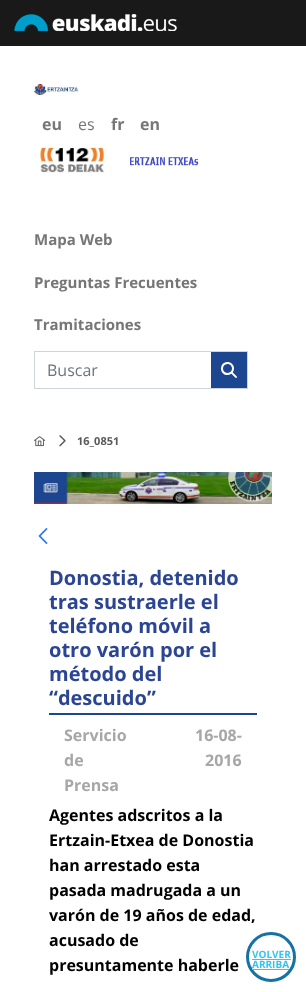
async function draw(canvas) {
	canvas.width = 306;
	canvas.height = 992;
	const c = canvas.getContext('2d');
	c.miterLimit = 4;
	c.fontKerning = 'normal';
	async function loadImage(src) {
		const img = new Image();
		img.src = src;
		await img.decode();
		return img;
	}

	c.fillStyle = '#fff';
	c.fillRect(0, 0, 306, 992);
	c.fillStyle = '#191919';
	c.fillRect(0, 0, 306, 46);
	c.drawImage(await loadImage('img1.png'), 14, 14, 163, 17);
	c.drawImage(await loadImage('img2.png'), 34, 84, 45, 11);
	c.font = 'bold 16px Open Sans';
	c.fillStyle = '#767676';
	c.fillText('eu', 42, 130);
	c.font = '16px Open Sans';
	c.fillText('es', 78, 130);
	c.font = 'bold 16px Open Sans';
	c.fillText('fr', 111, 130);
	c.fillText('en', 140, 130);
	c.drawImage(await loadImage('img3.png'), 39, 147, 68, 26);
	c.drawImage(await loadImage('img4.png'), 130, 157, 69, 9);
	c.font = 'bold 15px Open Sans';
	for (const [text, x, y] of [
		['Mapa Web', 34, 245],
		['Preguntas Frecuentes', 34, 288],
		['Tramitaciones', 34, 330],
	]) {
		c.fillText(text, x, y);
	}
	for (const [x, y, w, h, color] of [
		[34, 351, 214, 1, '#ced4da'],
		[34, 388, 177, 1, '#ced4da'],
		[34, 351, 1, 38, '#ced4da'],
	]) {
		c.fillStyle = color;
		c.fillRect(x, y, w, h);
	}
	c.font = '16px Open Sans';
	c.fillStyle = '#6c757d';
	c.fillText('Buscar', 47, 376);
	for (const [x, y, w, h, color] of [
		[211, 352, 36, 36, '#1c4690'],
		[247, 351, 1, 38, '#ced4da'],
		[211, 388, 37, 1, '#ced4da'],
	]) {
		c.fillStyle = color;
		c.fillRect(x, y, w, h);
	}
	c.drawImage(await loadImage('img5.png'), 221, 362, 16, 16);
	c.drawImage(await loadImage('img6.png'), 34, 436, 12, 11);
	c.drawImage(await loadImage('img7.png'), 59, 435, 7, 12);
	c.font = 'bold 11px Open Sans';
	c.fillStyle = '#5a5a5a';
	c.fillText('16_0851', 77, 445);
	c.drawImage(await loadImage('img8.png'), 34, 472, 238, 32);
	c.drawImage(await loadImage('img9.png'), 38, 528, 10, 16);
	c.fillStyle = '#1c4690';
	c.fillRect(49, 713, 208, 2);
	c.font = 'bold 20px Open Sans';
	c.fillStyle = '#2b4592';
	for (const [text, x, y] of [
		['Donostia, detenido', 49, 585],
		['tras sustraerle el', 49, 609],
		['teléfono móvil a', 49, 633],
		['otro varón por el', 49, 657],
		['método del', 49, 681],
		['“descuido”', 49, 705],
	]) {
		c.fillText(text, x, y);
	}
	c.font = 'bold 16px Open Sans';
	c.fillStyle = '#a7a7a7';
	for (const [text, x, y] of [
		['Servicio', 64, 741],
		['de', 64, 766],
		['Prensa', 64, 791],
		['16-08-', 195, 741],
		['2016', 205, 766],
	]) {
		c.fillText(text, x, y);
	}
	c.fillStyle = '#000';
	for (const [text, x, y] of [
		['Agentes adscritos a la', 49, 821],
		['Ertzain-Etxea de Donostia', 49, 846],
		['han arrestado esta', 49, 871],
		['pasada madrugada a un', 49, 896],
		['varón de 19 años de edad,', 49, 921],
		['acusado de', 49, 946],
		['presuntamente haberle', 49, 971],
	]) {
		c.fillText(text, x, y);
	}
	c.beginPath();
	c.arc(271, 957, 23.5, 0, 2 * Math.PI);
	c.strokeStyle = '#1472a4';
	c.lineWidth = 3;
	c.stroke();
	c.font = 'bold 10px Open Sans';
	c.fillStyle = '#37c3f0';
	c.fillText('VOLVER', 252, 958);
	c.fillText('ARRIBA', 252, 968);
	c.fillRect(252, 959, 39, 1);
	c.fillRect(252, 969, 37, 1);
}

draw(document.querySelector('canvas'));
